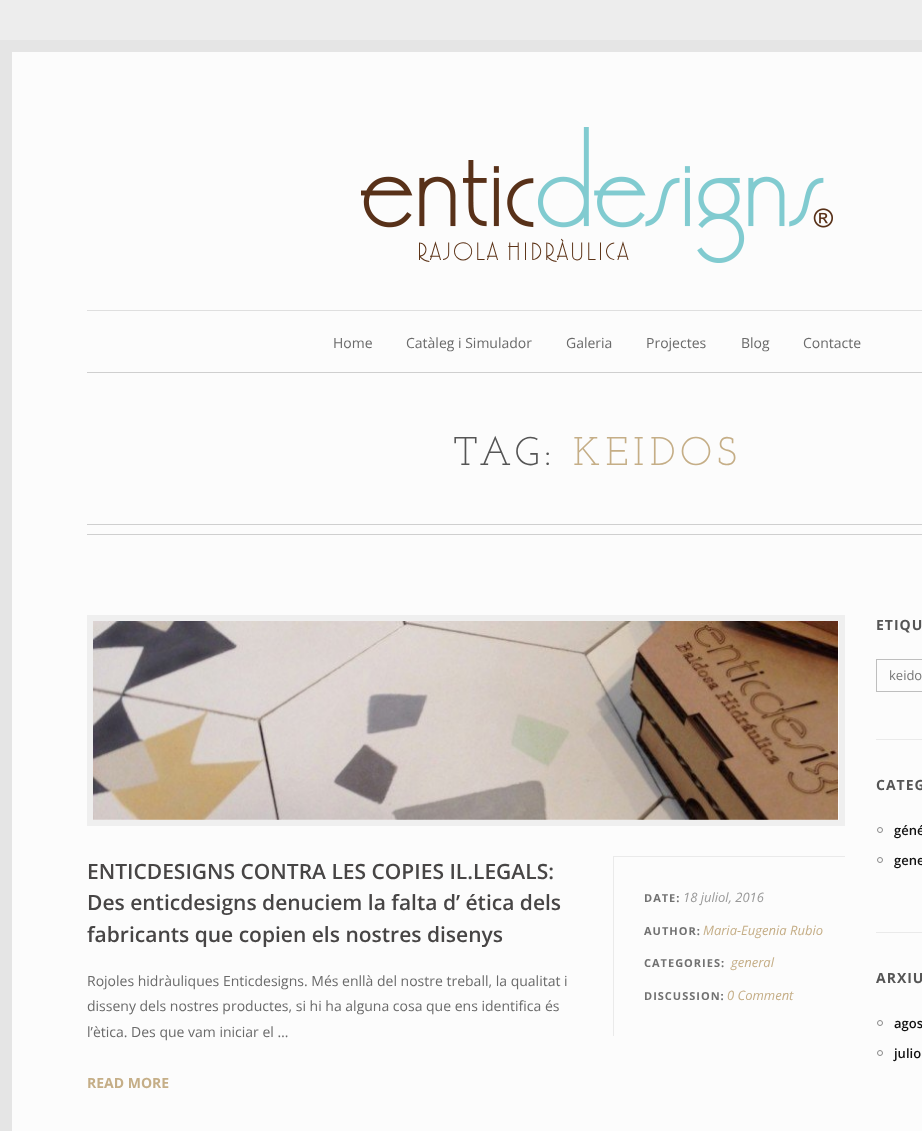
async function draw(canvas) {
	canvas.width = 922;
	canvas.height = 1131;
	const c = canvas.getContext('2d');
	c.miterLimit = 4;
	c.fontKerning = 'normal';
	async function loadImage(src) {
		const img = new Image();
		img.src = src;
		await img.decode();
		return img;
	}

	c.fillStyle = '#ededed';
	c.fillRect(0, 0, 922, 1131);
	c.fillStyle = '#e5e5e5';
	c.fillRect(0, 40, 922, 1091);
	c.fillStyle = '#fcfcfc';
	c.fillRect(12, 52, 910, 1079);
	c.drawImage(await loadImage('img1.png'), 361, 127, 472, 136);
	c.letterSpacing = '3px';
	c.font = 'bold 25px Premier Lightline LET';
	c.fillStyle = '#5c3317';
	c.fillText('RAJOLA HIDRÀULICA', 417, 260);
	c.fillStyle = '#dfdfdf';
	c.fillRect(87, 310, 835, 1);
	c.letterSpacing = '0px';
	c.font = '14px Open Sans';
	c.fillStyle = '#6a6a6a';
	for (const [text, x, y] of [
		['Home', 333, 348],
		['Catàleg i Simulador', 406, 348],
		['Galeria', 566, 348],
		['Projectes', 646, 348],
		['Blog', 741, 348],
		['Contacte', 803, 348],
	]) {
		c.fillText(text, x, y);
	}
	c.fillStyle = '#cfcfcf';
	c.fillRect(87, 372, 835, 1);
	c.letterSpacing = '5px';
	c.font = '40px Josefin Slab';
	c.fillStyle = '#555';
	c.fillText('TAG:', 453, 465);
	c.fillStyle = '#c5ae87';
	c.fillText('KEIDOS', 573, 465);
	c.fillStyle = '#cfcfcf';
	c.fillRect(87, 524, 835, 1);
	c.fillRect(87, 534, 835, 1);
	c.strokeStyle = '#efefef';
	c.lineWidth = 6;
	c.strokeRect(90, 618, 752, 205);
	c.drawImage(await loadImage('img2.png'), 93, 621, 745, 199);
	c.letterSpacing = '0px';
	c.font = '600 21px Open Sans';
	c.fillStyle = '#474545';
	for (const [text, x, y] of [
		['ENTICDESIGNS CONTRA LES COPIES IL.LEGALS:', 87, 879],
		['Des enticdesigns denuciem la falta d’ ética dels', 87, 910],
		['fabricants que copien els nostres disenys', 87, 942],
	]) {
		c.fillText(text, x, y);
	}
	c.fillStyle = '#eaeaea';
	c.fillRect(613, 856, 232, 1);
	c.fillRect(613, 856, 1, 180);
	c.letterSpacing = '1px';
	c.font = 'bold 11px Open Sans';
	c.fillStyle = '#717171';
	c.fillText('DATE:', 644, 902);
	c.letterSpacing = '0px';
	c.font = 'italic 13px Open Sans';
	c.fillStyle = '#999';
	c.fillText('18 juliol, 2016', 683, 902);
	c.letterSpacing = '1px';
	c.font = 'bold 11px Open Sans';
	c.fillStyle = '#717171';
	c.fillText('AUTHOR:', 644, 935);
	c.letterSpacing = '0px';
	c.font = 'italic 13px Open Sans';
	c.fillStyle = '#c5ae87';
	c.fillText('Maria-Eugenia Rubio', 703, 935);
	c.letterSpacing = '1px';
	c.font = 'bold 11px Open Sans';
	c.fillStyle = '#717171';
	c.fillText('CATEGORIES:', 644, 967);
	c.letterSpacing = '0px';
	c.font = 'italic 13px Open Sans';
	c.fillStyle = '#c5ae87';
	c.fillText('general', 731, 967);
	c.letterSpacing = '1px';
	c.font = 'bold 11px Open Sans';
	c.fillStyle = '#717171';
	c.fillText('DISCUSSION:', 644, 1000);
	c.letterSpacing = '0px';
	c.font = 'italic 13px Open Sans';
	c.fillStyle = '#c5ae87';
	c.fillText('0 Comment', 727, 1000);
	c.font = '14px Open Sans';
	c.fillStyle = '#6a6a6a';
	for (const [text, x, y] of [
		['Rojoles hidràuliques Enticdesigns. Més enllà del nostre treball, la qualitat i', 87, 986],
		['disseny dels nostres productes, si hi ha alguna cosa que ens identifica és', 87, 1011],
		['l’ètica. Des que vam iniciar el …', 87, 1037],
	]) {
		c.fillText(text, x, y);
	}
	c.font = 'bold 14px Open Sans';
	c.fillStyle = '#c5ae87';
	c.fillText('READ MORE', 87, 1088);
	c.fillStyle = '#eaeaea';
	c.fillRect(876, 739, 46, 1);
	c.letterSpacing = '1px';
	c.fillStyle = '#555';
	c.fillText('ETIQU', 876, 630);
	c.strokeStyle = '#bebebe';
	c.lineWidth = 1;
	c.strokeRect(876.5, 659.5, 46, 32);
	c.letterSpacing = '0px';
	c.font = '13px Open Sans';
	c.fillStyle = '#777';
	c.fillText('keido', 889, 680);
	c.fillStyle = '#eaeaea';
	c.fillRect(876, 932, 46, 1);
	c.letterSpacing = '1px';
	c.font = 'bold 14px Open Sans';
	c.fillStyle = '#555';
	c.fillText('CATEG', 876, 790);
	c.beginPath();
	c.arc(880, 830, 2.5, 0, 2 * Math.PI);
	c.strokeStyle = '#898989';
	c.stroke();
	c.letterSpacing = '0px';
	c.font = '600 13px Open Sans';
	c.fillStyle = '#111';
	c.fillText('géné', 894, 835);
	c.beginPath();
	c.arc(880, 860, 2.5, 0, 2 * Math.PI);
	c.stroke();
	c.fillText('gene', 894, 865);
	c.letterSpacing = '1px';
	c.font = 'bold 14px Open Sans';
	c.fillStyle = '#555';
	c.fillText('ARXIU', 876, 983);
	c.beginPath();
	c.arc(880, 1023, 2.5, 0, 2 * Math.PI);
	c.stroke();
	c.letterSpacing = '0px';
	c.font = '600 13px Open Sans';
	c.fillStyle = '#111';
	c.fillText('agos', 894, 1028);
	c.beginPath();
	c.arc(880, 1053, 2.5, 0, 2 * Math.PI);
	c.stroke();
	c.fillText('julio', 894, 1058);
}

draw(document.querySelector('canvas'));
